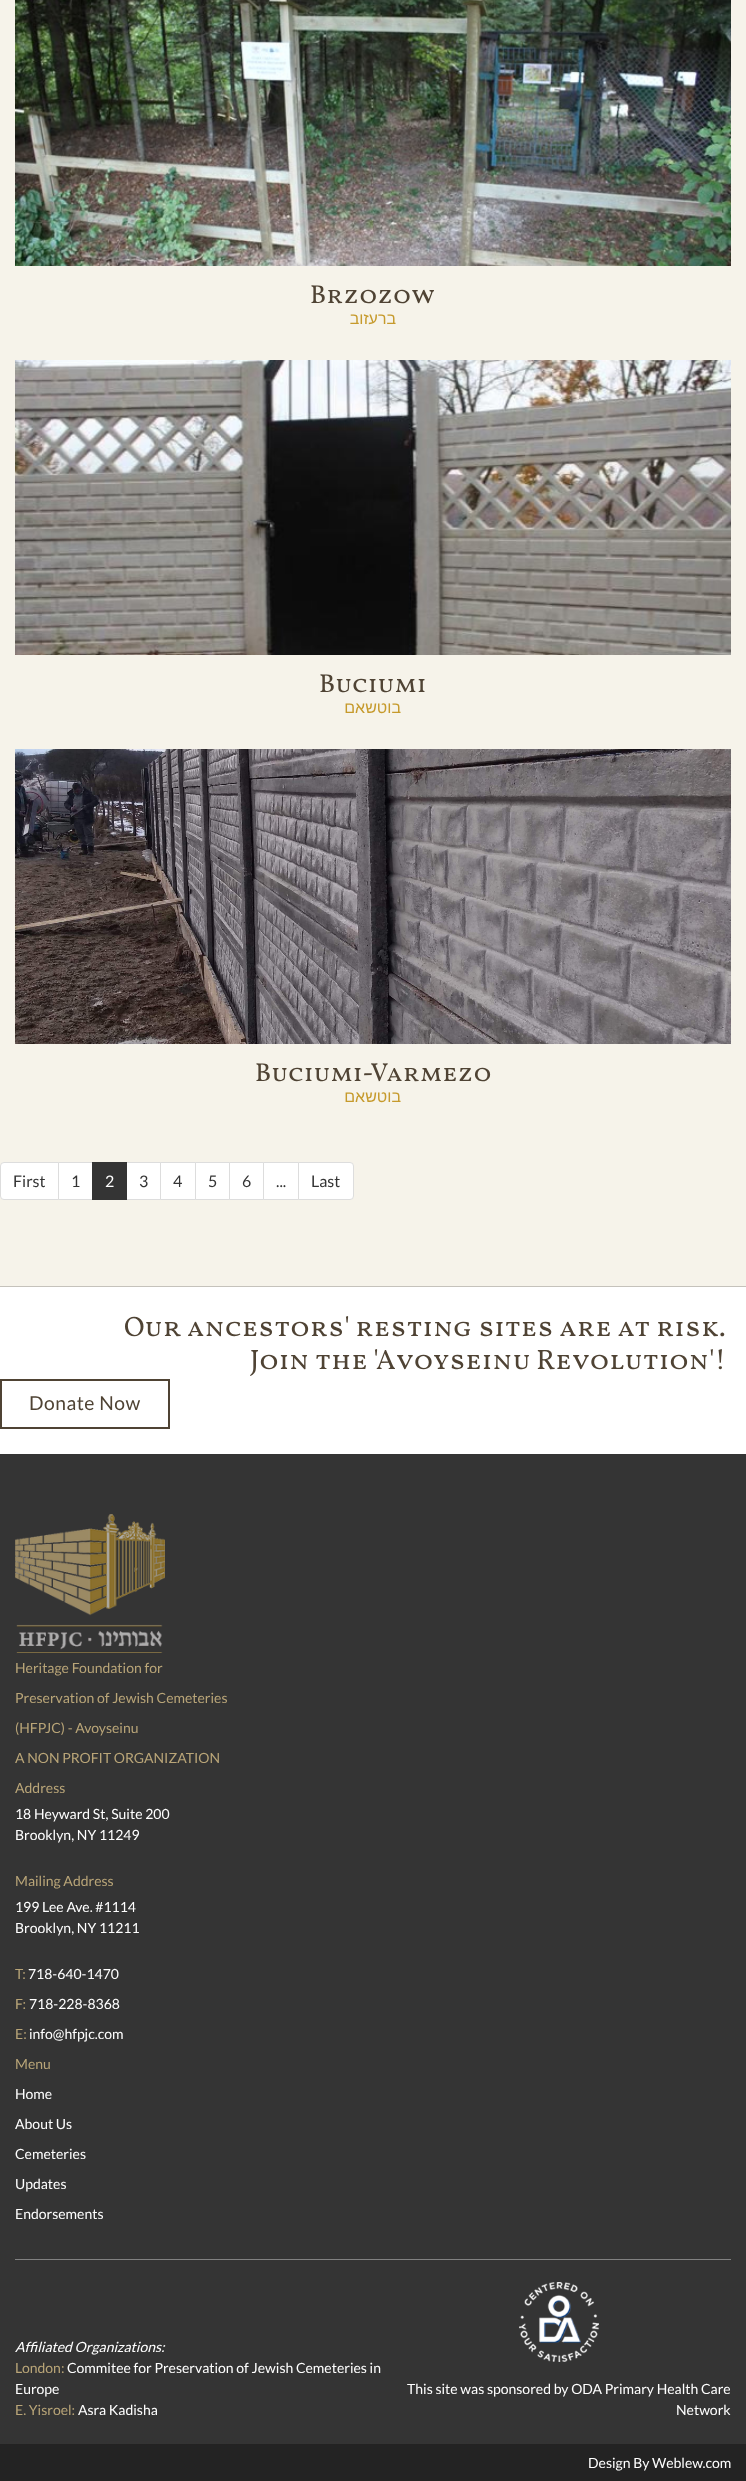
async function draw(canvas) {
	canvas.width = 746;
	canvas.height = 2481;
	const c = canvas.getContext('2d');
	c.miterLimit = 4;
	c.fontKerning = 'normal';
	async function loadImage(src) {
		const img = new Image();
		img.src = src;
		await img.decode();
		return img;
	}

	c.fillStyle = '#fff';
	c.fillRect(0, 0, 746, 2481);
	c.fillStyle = '#f6f3ea';
	c.fillRect(0, 0, 746, 1286);
	c.drawImage(await loadImage('img1.png'), 15, 0, 716, 266);
	c.font = '26px Vollkorn SC';
	c.fillStyle = '#4f4334';
	c.fillText('Brzozow', 310, 303);
	c.direction = 'rtl';
	c.font = '16px Liberation Sans';
	c.fillStyle = '#c69a2c';
	c.fillText('ברעזוב', 396, 324);
	c.drawImage(await loadImage('img2.png'), 15, 360, 716, 295);
	c.direction = 'ltr';
	c.font = '26px Vollkorn SC';
	c.fillStyle = '#4f4334';
	c.fillText('Buciumi', 319, 692);
	c.direction = 'rtl';
	c.font = '16px Liberation Sans';
	c.fillStyle = '#c69a2c';
	c.fillText('בוטשאם', 401, 713);
	c.drawImage(await loadImage('img3.png'), 15, 749, 716, 295);
	c.direction = 'ltr';
	c.font = '26px Vollkorn SC';
	c.fillStyle = '#4f4334';
	c.fillText('Buciumi-Varmezo', 255, 1081);
	c.direction = 'rtl';
	c.font = '16px Liberation Sans';
	c.fillStyle = '#c69a2c';
	c.fillText('בוטשאם', 401, 1102);
	c.fillStyle = '#fff';
	c.beginPath();
	c.roundRect(0.5, 1162.5, 58, 37, [3.5, 0, 0, 3.5]);
	c.fill();
	c.strokeStyle = '#ddd';
	c.stroke();
	c.direction = 'ltr';
	c.font = '16px Lato';
	c.fillStyle = '#343434';
	c.fillText('First', 13, 1187);
	c.fillStyle = '#fff';
	c.beginPath();
	c.rect(58.5, 1162.5, 34, 37);
	c.fill();
	c.stroke();
	c.fillStyle = '#343434';
	c.fillText('1', 71, 1187);
	c.fillStyle = '#fff';
	c.beginPath();
	c.rect(126.5, 1162.5, 34, 37);
	c.fill();
	c.stroke();
	c.fillStyle = '#343434';
	c.fillRect(92, 1162, 35, 38);
	c.fillStyle = '#fff';
	c.fillText('2', 105, 1187);
	c.fillStyle = '#343434';
	c.fillText('3', 139, 1187);
	c.fillStyle = '#fff';
	c.beginPath();
	c.rect(160.5, 1162.5, 35, 37);
	c.fill();
	c.stroke();
	c.fillStyle = '#343434';
	c.fillText('4', 173, 1187);
	c.fillStyle = '#fff';
	c.beginPath();
	c.rect(195.5, 1162.5, 34, 37);
	c.fill();
	c.stroke();
	c.fillStyle = '#343434';
	c.fillText('5', 208, 1187);
	c.fillStyle = '#fff';
	c.beginPath();
	c.rect(229.5, 1162.5, 34, 37);
	c.fill();
	c.stroke();
	c.fillStyle = '#343434';
	c.fillText('6', 242, 1187);
	c.fillStyle = '#fff';
	c.beginPath();
	c.rect(263.5, 1162.5, 35, 37);
	c.fill();
	c.stroke();
	c.fillStyle = '#343434';
	c.fillText('...', 276, 1187);
	c.fillStyle = '#fff';
	c.beginPath();
	c.roundRect(298.5, 1162.5, 55, 37, [0, 3.5, 3.5, 0]);
	c.fill();
	c.stroke();
	c.fillStyle = '#343434';
	c.fillText('Last', 311, 1187);
	c.fillStyle = '#c5c2bb';
	c.fillRect(0, 1286, 746, 1);
	c.font = '28px Vollkorn SC';
	c.fillStyle = '#4f4334';
	c.fillText('Our ancestors\' resting sites are at risk.', 124, 1336);
	c.fillText('Join the \'Avoyseinu Revolution\'!', 250, 1369);
	c.strokeStyle = '#4f4334';
	c.lineWidth = 2;
	c.strokeRect(1, 1380, 168, 48);
	c.letterSpacing = '0.5px';
	c.font = '19.25px Lato';
	c.fillText('Donate Now', 29, 1410);
	c.fillStyle = '#343434';
	c.fillRect(0, 1454, 746, 990);
	c.drawImage(await loadImage('img4.png'), 15, 1514, 150, 139);
	c.letterSpacing = '0px';
	c.font = '14px Lato';
	c.fillStyle = '#b9a578';
	for (const [text, x, y] of [
		['Heritage Foundation for', 15, 1673],
		['Preservation of Jewish Cemeteries', 15, 1703],
		['(HFPJC) - Avoyseinu', 15, 1733],
		['A NON PROFIT ORGANIZATION', 15, 1763],
		['Address', 15, 1793],
	]) {
		c.fillText(text, x, y);
	}
	c.fillStyle = '#fff';
	c.fillText('18 Heyward St, Suite 200', 15, 1819);
	c.fillText('Brooklyn, NY 11249', 15, 1840);
	c.fillStyle = '#b9a578';
	c.fillText('Mailing Address', 15, 1886);
	c.fillStyle = '#fff';
	c.fillText('199 Lee Ave. #1114', 15, 1912);
	c.fillText('Brooklyn, NY 11211', 15, 1933);
	c.fillStyle = '#b9a578';
	c.fillText('T:', 15, 1979);
	c.fillStyle = '#fff';
	c.fillText('718-640-1470', 28, 1979);
	c.fillStyle = '#b9a578';
	c.fillText('F:', 15, 2009);
	c.fillStyle = '#fff';
	c.fillText('718-228-8368', 29, 2009);
	c.fillStyle = '#b9a578';
	c.fillText('E:', 15, 2039);
	c.fillStyle = '#fff';
	c.fillText('info@hfpjc.com', 29, 2039);
	c.fillStyle = '#b9a578';
	c.fillText('Menu', 15, 2069);
	c.fillStyle = '#fff';
	for (const [text, x, y] of [
		['Home', 15, 2099],
		['About Us', 15, 2129],
		['Cemeteries', 15, 2159],
		['Updates', 15, 2189],
		['Endorsements', 15, 2219],
	]) {
		c.fillText(text, x, y);
	}
	c.fillStyle = '#818181';
	c.fillRect(15, 2259, 716, 1);
	c.font = 'italic 14px Lato';
	c.fillStyle = '#fff';
	c.fillText('Affiliated Organizations:', 15, 2352);
	c.font = '14px Lato';
	c.fillStyle = '#b9a578';
	c.fillText('London:', 15, 2373);
	c.fillStyle = '#fff';
	c.fillText('Commitee for Preservation of Jewish Cemeteries in', 67, 2373);
	c.fillText('Europe', 15, 2394);
	c.fillStyle = '#b9a578';
	c.fillText('E. Yisroel:', 15, 2415);
	c.fillStyle = '#fff';
	c.fillText('Asra Kadisha', 78, 2415);
	c.drawImage(await loadImage('img5.png'), 519, 2282, 80, 80);
	c.fillText('This site was sponsored by ODA Primary Health Care', 407, 2394);
	c.fillText('Network', 676, 2415);
	c.fillStyle = '#232323';
	c.fillRect(0, 2444, 746, 37);
	c.fillStyle = '#fff';
	c.fillText('Design By Weblew.com', 588, 2468);
}

draw(document.querySelector('canvas'));
